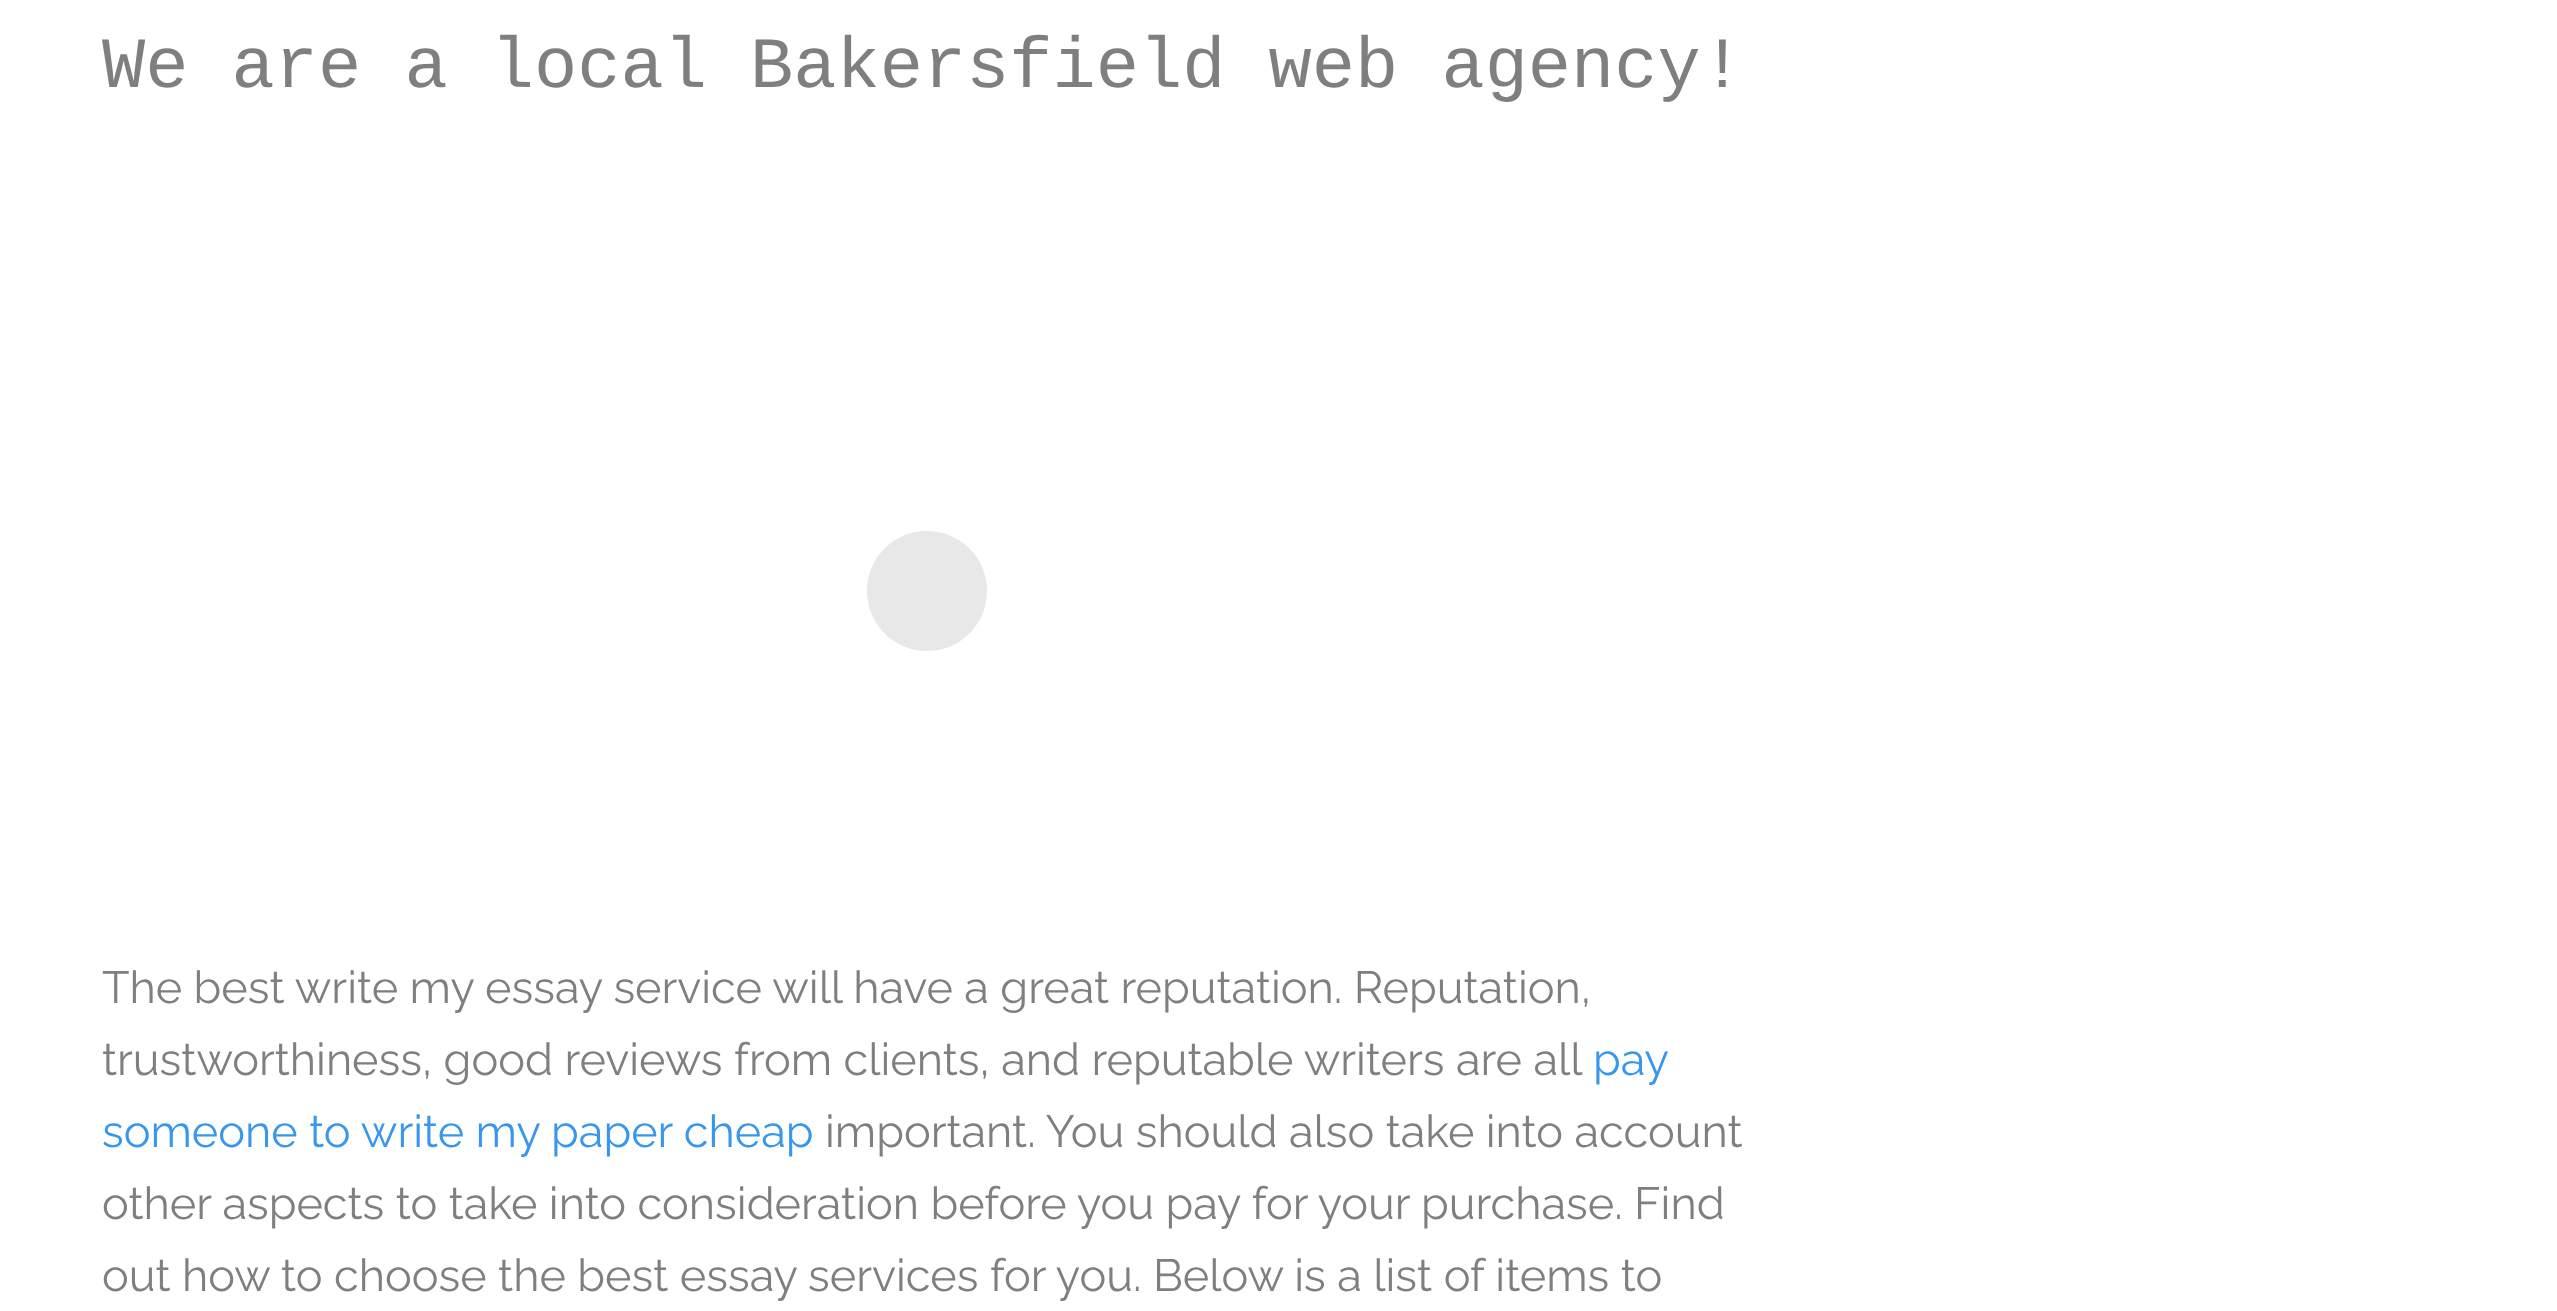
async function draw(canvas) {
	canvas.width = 2557;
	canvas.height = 1311;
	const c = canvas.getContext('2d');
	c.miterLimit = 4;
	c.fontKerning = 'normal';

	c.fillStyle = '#fff';
	c.fillRect(0, 0, 2557, 1311);
	c.font = '72px Liberation Mono';
	c.fillStyle = '#7f7f7f';
	c.fillText('We are a local Bakersfield web agency!', 102, 87);
	c.fillStyle = '#e8e8e8';
	c.beginPath();
	c.arc(927, 591, 60, 0, 2 * Math.PI);
	c.fill();
	c.font = '45px Raleway';
	c.fillStyle = '#7f7f7f';
	c.fillText('The best write my essay service will have a great reputation. Reputation,', 102, 1003);
	c.fillText('trustworthiness, good reviews from clients, and reputable writers are all', 102, 1075);
	c.fillStyle = '#3797ef';
	c.fillText('pay', 1593, 1075);
	c.fillText('someone to write my paper cheap', 102, 1147);
	c.fillStyle = '#7f7f7f';
	for (const [text, x, y] of [
		['important. You should also take into account', 825, 1147],
		['other aspects to take into consideration before you pay for your purchase. Find', 102, 1219],
		['out how to choose the best essay services for you. Below is a list of items to', 102, 1291],
	]) {
		c.fillText(text, x, y);
	}
}

draw(document.querySelector('canvas'));
